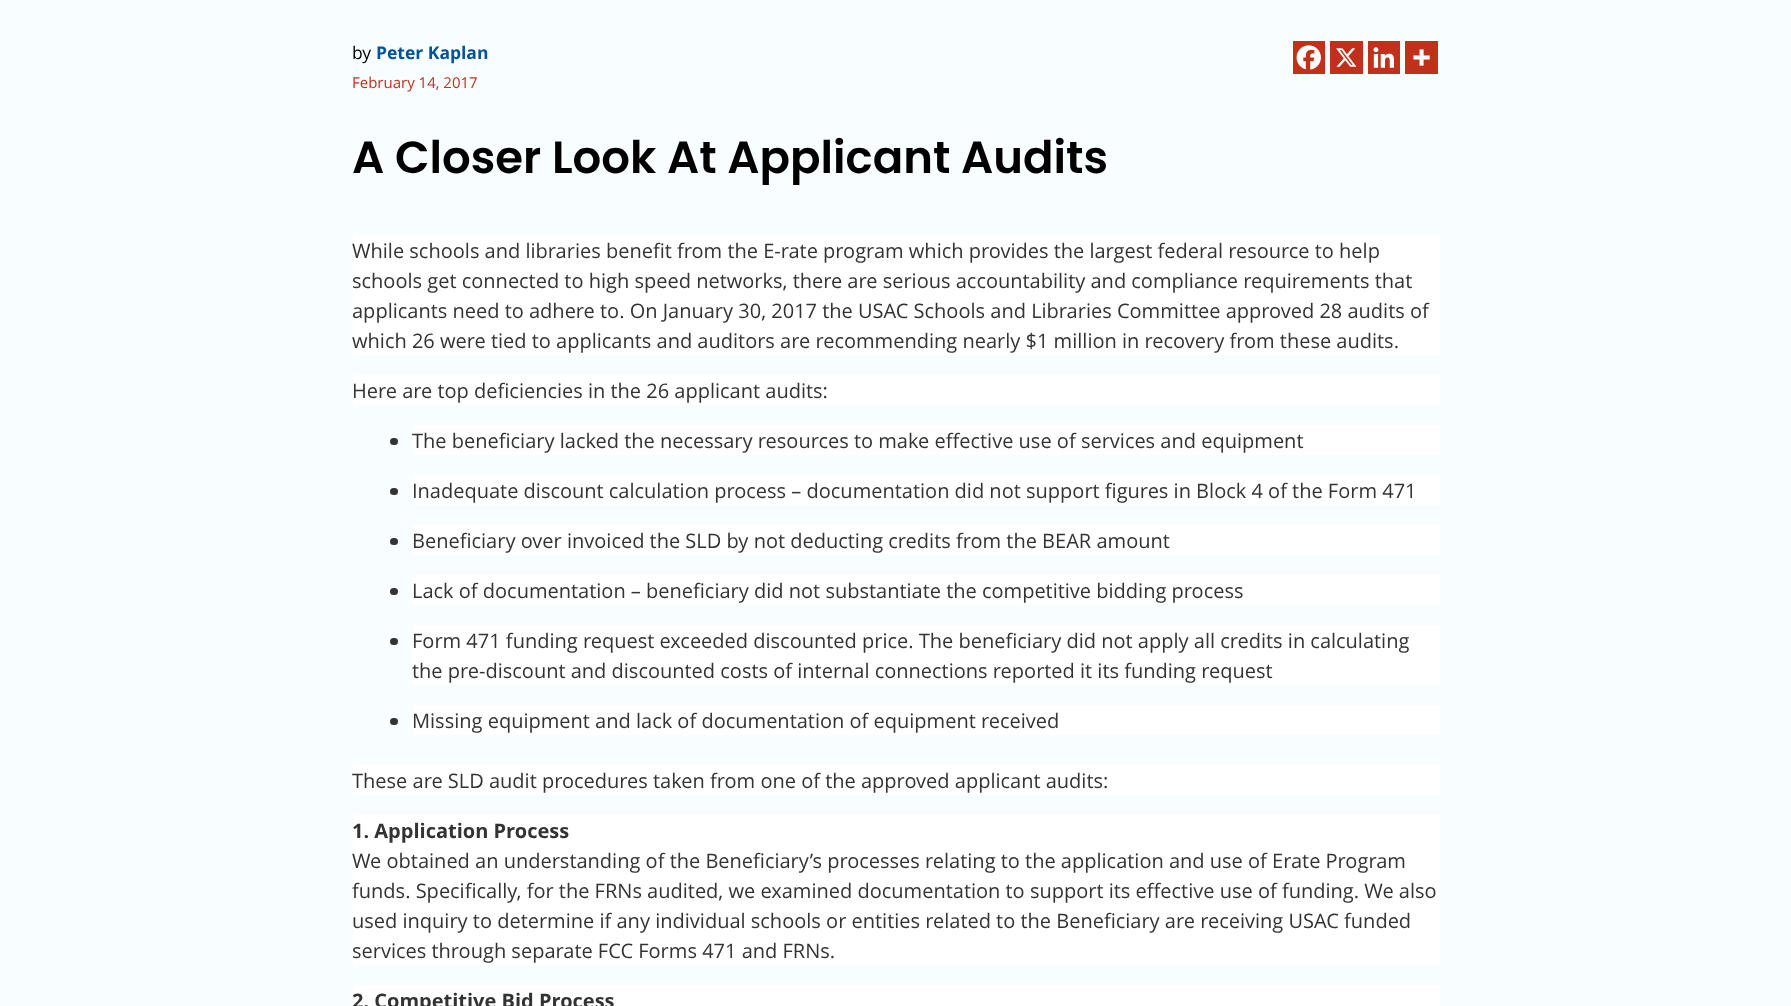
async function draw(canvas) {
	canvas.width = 1791;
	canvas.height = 1006;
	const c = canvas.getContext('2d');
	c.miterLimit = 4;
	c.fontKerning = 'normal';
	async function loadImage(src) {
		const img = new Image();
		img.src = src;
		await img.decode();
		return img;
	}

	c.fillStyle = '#f8fdff';
	c.fillRect(0, 0, 1791, 1006);
	c.font = '17.5px Open Sans';
	c.fillStyle = '#000';
	c.fillText('by', 352, 59);
	c.font = 'bold 17.5px Open Sans';
	c.fillStyle = '#00539b';
	c.fillText('Peter Kaplan', 376, 59);
	c.font = '15px Open Sans';
	c.fillStyle = '#bf311a';
	c.fillText('February 14, 2017', 352, 88);
	c.fillRect(1293, 41, 32, 33);
	c.drawImage(await loadImage('img1.png'), 1296, 45, 25, 25);
	c.fillRect(1330, 41, 33, 33);
	c.drawImage(await loadImage('img2.png'), 1336, 48, 21, 19);
	c.fillRect(1368, 41, 32, 33);
	c.drawImage(await loadImage('img3.png'), 1373, 47, 21, 21);
	c.fillRect(1405, 41, 33, 33);
	c.drawImage(await loadImage('img4.png'), 1413, 49, 17, 17);
	c.font = '600 45px Poppins';
	c.fillStyle = '#000';
	c.fillText('A Closer Look At Applicant Audits', 352, 173);
	c.fillStyle = '#fff';
	c.fillRect(353, 235, 1087, 120);
	c.font = '20px Open Sans';
	c.fillStyle = '#333';
	for (const [text, x, y] of [
		['While schools and libraries benefit from the E-rate program which provides the largest federal resource to help', 352, 258],
		['schools get connected to high speed networks, there are serious accountability and compliance requirements that', 352, 288],
		['applicants need to adhere to. On January 30, 2017 the USAC Schools and Libraries Committee approved 28 audits of', 352, 318],
		['which 26 were tied to applicants and auditors are recommending nearly $1 million in recovery from these audits.', 352, 348],
	]) {
		c.fillText(text, x, y);
	}
	c.fillStyle = '#fff';
	c.fillRect(353, 375, 1087, 30);
	c.fillStyle = '#333';
	c.fillText('Here are top deficiencies in the 26 applicant audits:', 352, 398);
	c.fillStyle = '#fff';
	c.fillRect(413, 425, 1027, 30);
	c.fillStyle = '#333';
	c.beginPath();
	c.roundRect(390, 438, 8, 7, 3.5);
	c.fill();
	c.fillText('The beneficiary lacked the necessary resources to make effective use of services and equipment', 412, 448);
	c.fillStyle = '#fff';
	c.fillRect(413, 475, 1027, 30);
	c.fillStyle = '#333';
	c.beginPath();
	c.roundRect(390, 488, 8, 7, 3.5);
	c.fill();
	c.fillText('Inadequate discount calculation process – documentation did not support figures in Block 4 of the Form 471', 412, 498);
	c.fillStyle = '#fff';
	c.fillRect(413, 525, 1027, 30);
	c.fillStyle = '#333';
	c.beginPath();
	c.roundRect(390, 538, 8, 7, 3.5);
	c.fill();
	c.fillText('Beneficiary over invoiced the SLD by not deducting credits from the BEAR amount', 412, 548);
	c.fillStyle = '#fff';
	c.fillRect(413, 575, 1027, 30);
	c.fillStyle = '#333';
	c.beginPath();
	c.roundRect(390, 588, 8, 7, 3.5);
	c.fill();
	c.fillText('Lack of documentation – beneficiary did not substantiate the competitive bidding process', 412, 598);
	c.fillStyle = '#fff';
	c.fillRect(413, 625, 1027, 60);
	c.fillStyle = '#333';
	c.beginPath();
	c.roundRect(390, 638, 8, 7, 3.5);
	c.fill();
	c.fillText('Form 471 funding request exceeded discounted price. The beneficiary did not apply all credits in calculating', 412, 648);
	c.fillText('the pre-discount and discounted costs of internal connections reported it its funding request', 412, 678);
	c.fillStyle = '#fff';
	c.fillRect(413, 705, 1027, 30);
	c.fillStyle = '#333';
	c.beginPath();
	c.roundRect(390, 718, 8, 7, 3.5);
	c.fill();
	c.fillText('Missing equipment and lack of documentation of equipment received', 412, 728);
	c.fillStyle = '#fff';
	c.fillRect(353, 765, 1087, 30);
	c.fillStyle = '#333';
	c.fillText('These are SLD audit procedures taken from one of the approved applicant audits:', 352, 788);
	c.fillStyle = '#fff';
	c.fillRect(353, 815, 1087, 150);
	c.font = 'bold 20px Open Sans';
	c.fillStyle = '#333';
	c.fillText('1. Application Process', 352, 838);
	c.font = '20px Open Sans';
	for (const [text, x, y] of [
		['We obtained an understanding of the Beneficiary’s processes relating to the application and use of Erate Program', 352, 868],
		['funds. Specifically, for the FRNs audited, we examined documentation to support its effective use of funding. We also', 352, 898],
		['used inquiry to determine if any individual schools or entities related to the Beneficiary are receiving USAC funded', 352, 928],
		['services through separate FCC Forms 471 and FRNs.', 352, 958],
	]) {
		c.fillText(text, x, y);
	}
	c.fillStyle = '#fff';
	c.fillRect(353, 985, 1087, 21);
	c.font = 'bold 20px Open Sans';
	c.fillStyle = '#333';
	c.fillText('2. Competitive Bid Process', 352, 1008);
}

draw(document.querySelector('canvas'));
